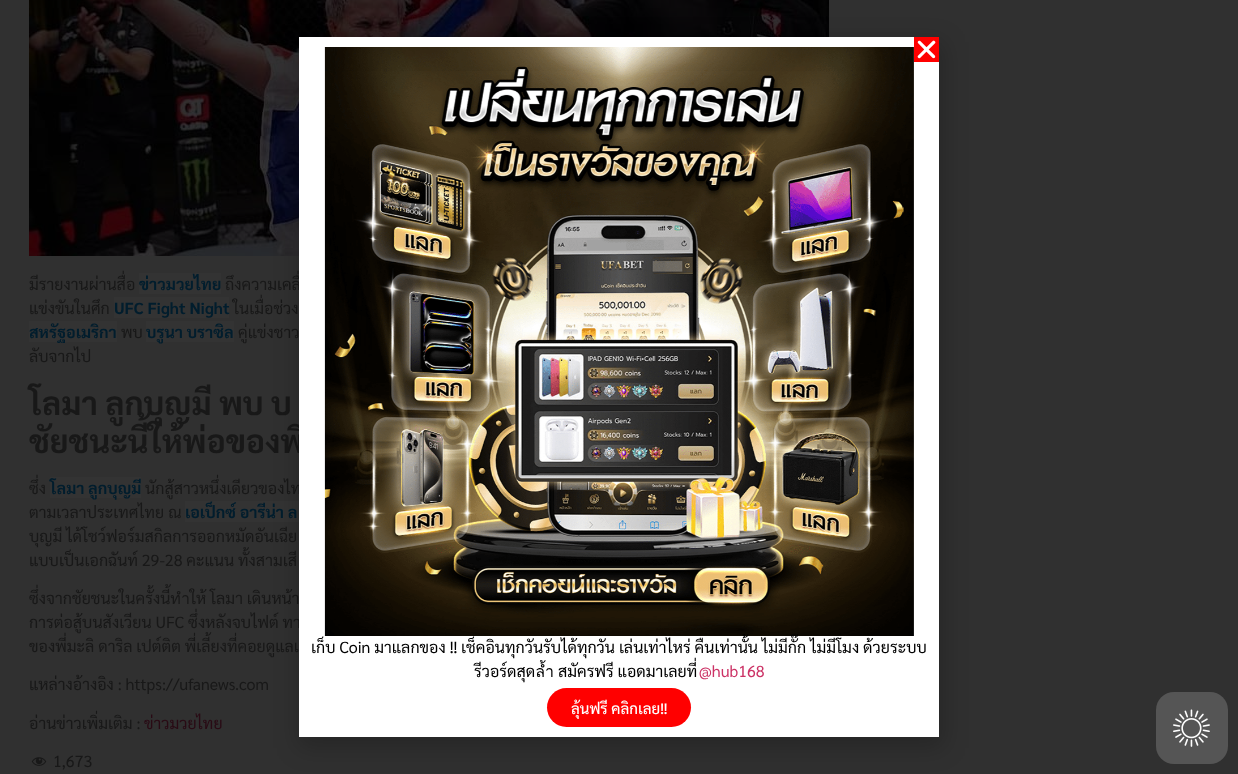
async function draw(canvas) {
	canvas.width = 1238;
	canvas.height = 774;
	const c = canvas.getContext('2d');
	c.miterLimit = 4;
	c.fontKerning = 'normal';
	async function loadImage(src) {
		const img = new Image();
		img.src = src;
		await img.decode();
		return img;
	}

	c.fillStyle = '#303030';
	c.fillRect(0, 0, 1238, 774);
	c.drawImage(await loadImage('img1.png'), 29, 0, 800, 256);
	c.font = '16px Sarabun';
	c.fillStyle = '#181818';
	c.fillText('มีรายงานผ่านสื่อ', 29, 290);
	c.fillStyle = '#333';
	c.fillRect(139, 273, 82, 21);
	c.font = 'bold 16px Sarabun';
	c.fillStyle = '#011d2d';
	c.fillText('ข่าวมวยไทย', 139, 290);
	c.font = '16px Sarabun';
	c.fillStyle = '#181818';
	c.fillText('ถึงความเคลื่', 225, 290);
	c.fillText('แข่งขันในศึก', 29, 314);
	c.fillStyle = '#333';
	c.fillRect(114, 297, 115, 21);
	c.font = 'bold 16px Sarabun';
	c.fillStyle = '#011d2d';
	c.fillText('UFC Fight Night', 114, 314);
	c.font = '16px Sarabun';
	c.fillStyle = '#181818';
	c.fillText('ในเมื่อช่วง', 233, 314);
	c.fillStyle = '#333';
	c.fillRect(29, 321, 88, 21);
	c.font = 'bold 16px Sarabun';
	c.fillStyle = '#011d2d';
	c.fillText('สหรัฐอเมริกา', 29, 338);
	c.font = '16px Sarabun';
	c.fillStyle = '#181818';
	c.fillText('พบ', 121, 338);
	c.fillStyle = '#333';
	c.fillRect(146, 321, 88, 21);
	c.font = 'bold 16px Sarabun';
	c.fillStyle = '#011d2d';
	c.fillText('บรูนา บราซิล', 146, 338);
	c.font = '16px Sarabun';
	c.fillStyle = '#181818';
	c.fillText('คู่แข่งชาว', 238, 338);
	c.fillText('ลับจากไป', 29, 362);
	c.font = 'bold 32px Sarabun';
	c.fillText('โลมา ลูกบุญมี พบ บ', 29, 415);
	c.fillText('ชัยชนะนี้ให้พ่อของพี่', 29, 453);
	c.font = '16px Sarabun';
	c.fillText('ซึ่ง', 29, 494);
	c.fillStyle = '#333';
	c.fillRect(50, 477, 91, 21);
	c.font = 'bold 16px Sarabun';
	c.fillStyle = '#011d2d';
	c.fillText('โลมา ลูกบุญมี', 50, 494);
	c.font = '16px Sarabun';
	c.fillStyle = '#181818';
	c.fillText('นักสู้สาวหนึ่งเดียวของไท', 145, 494);
	c.fillText('ตามเวลาประเทศไทย ณ', 29, 518);
	c.fillStyle = '#333';
	c.fillRect(185, 501, 114, 21);
	c.font = 'bold 16px Sarabun';
	c.fillStyle = '#011d2d';
	c.fillText('เอเป็กซ์ อารีน่า ล', 185, 518);
	c.font = '16px Sarabun';
	c.fillStyle = '#181818';
	for (const [text, x, y] of [
		['บุญมี ได้โชว์ฟอร์มสกิลการออกหมัดอันเฉีย', 29, 542],
		['แบบเป็นเอกฉันท์ 29-28 คะแนน ทั้งสามเสี', 29, 566],
		['ซึ่งจากชัยชนะในครั้งนี้ทำให้ โลมา เดินหน้า', 29, 604],
		['การต่อสู้บนสังเวียน UFC ซึ่งหลังจบไฟต์ ทา', 29, 628],
		['ของพี่มะลิ ดาริล เปต์ติต พี่เลี้ยงที่คอยดูแลเ', 29, 652],
		['แหล่างอ้างอิง : https://ufanews.com', 29, 690],
		['อ่านข่าวเพิ่มเติม :', 29, 729],
	]) {
		c.fillText(text, x, y);
	}
	c.fillStyle = '#290a14';
	c.fillText('ข่าวมวยไทย', 144, 729);
	c.drawImage(await loadImage('img2.png'), 31, 757, 16, 9);
	c.fillStyle = '#181818';
	c.fillText('1,673', 53, 767);
	c.fillStyle = '#00000033';
	c.filter = 'blur(11.5px)';
	c.beginPath();
	c.rect(298, 42, 646, 706);
	c.fill();
	c.filter = 'none';
	c.fillStyle = '#fff';
	c.fillRect(299, 37, 640, 700);
	c.fillStyle = '#f00';
	c.fillRect(914, 37, 25, 25);
	c.drawImage(await loadImage('img3.png'), 917, 40, 19, 19);
	c.drawImage(await loadImage('img4.png'), 324, 47, 590, 589);
	c.fillStyle = '#000';
	c.fillText('เก็บ Coin มาแลกของ !! เช็คอินทุกวันรับได้ทุกวัน เล่นเท่าไหร่ คืนเท่านั้น ไม่มีกั๊ก ไม่มีโมง ด้วยระบบ', 311, 653);
	c.fillText('รีวอร์ดสุดล้ำ สมัครฟรี แอดมาเลยที่', 474, 677);
	c.fillStyle = '#c36';
	c.fillText('@hub168', 699, 677);
	c.fillStyle = '#f00';
	c.beginPath();
	c.roundRect(547, 688, 144, 39, 19.5);
	c.fill();
	c.font = '500 15px Sarabun';
	c.fillStyle = '#fff';
	c.fillText('ลุ้นฟรี คลิกเลย!!', 571, 714);
	c.fillStyle = '#555';
	c.beginPath();
	c.roundRect(1156, 692, 72, 72, 18);
	c.fill();
	c.drawImage(await loadImage('img5.png'), 1173, 709, 37, 38);
}

draw(document.querySelector('canvas'));
